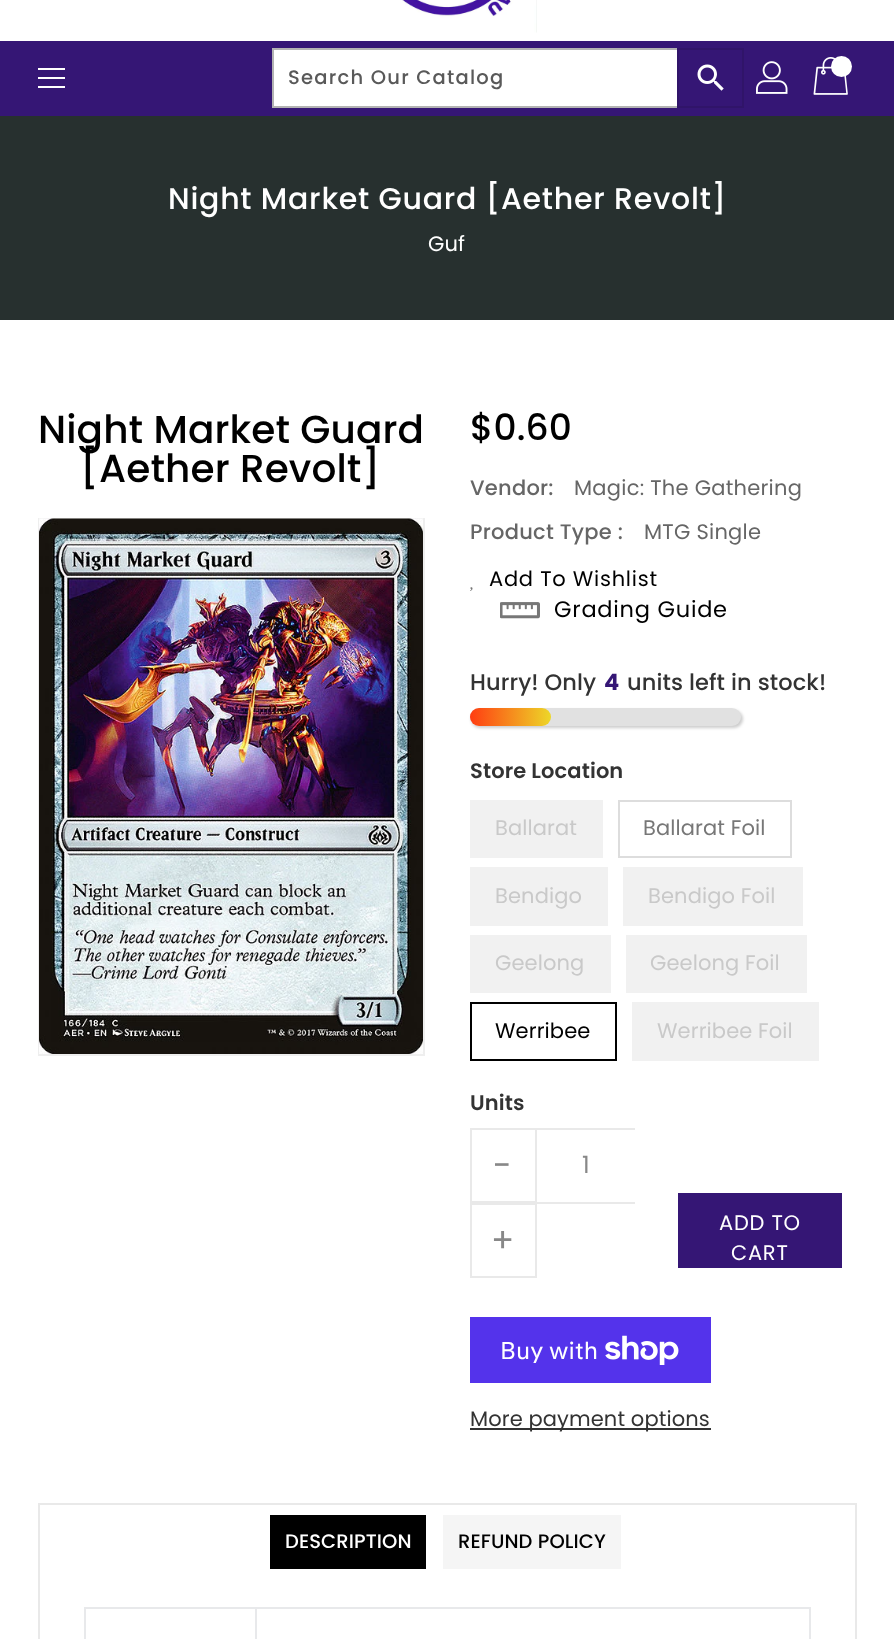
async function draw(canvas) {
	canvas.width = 894;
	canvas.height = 1639;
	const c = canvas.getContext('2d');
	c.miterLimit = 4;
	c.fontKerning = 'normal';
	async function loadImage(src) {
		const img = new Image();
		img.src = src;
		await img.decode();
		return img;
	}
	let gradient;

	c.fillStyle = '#fff';
	c.fillRect(0, 0, 894, 1639);
	c.drawImage(await loadImage('img1.png'), 402, 0, 135, 33);
	for (const [x, y, w, h, color] of [
		[0, 41, 894, 75, '#351675'],
		[38, 68, 27, 2, '#fff'],
		[38, 77, 27, 2, '#fff'],
		[38, 86, 27, 2, '#fff'],
		[274, 50, 403, 56, '#fff'],
	]) {
		c.fillStyle = color;
		c.fillRect(x, y, w, h);
	}
	c.strokeStyle = '#b3b3b3';
	c.lineWidth = 2;
	c.strokeRect(273, 49, 470, 58);
	c.letterSpacing = '1.25px';
	c.font = '500 19.5px Poppins';
	c.fillStyle = '#595959';
	c.fillText('Search Our Catalog', 288, 84);
	c.strokeStyle = '#301469';
	c.strokeRect(678, 49, 65, 58);
	c.drawImage(await loadImage('img2.png'), 697, 64, 27, 27);
	c.drawImage(await loadImage('img3.png'), 756, 61, 32, 33);
	c.drawImage(await loadImage('img4.png'), 813, 57, 35, 38);
	c.fillStyle = '#fff';
	c.beginPath();
	c.arc(841.5, 66.5, 10.5, 0, 2 * Math.PI);
	c.fill();
	c.fillStyle = '#27302f';
	c.fillRect(0, 116, 894, 204);
	c.letterSpacing = '0.75px';
	c.font = '500 30px Poppins';
	c.fillStyle = '#fff';
	c.fillText('Night Market Guard [Aether Revolt]', 168, 209);
	c.letterSpacing = '0.1px';
	c.font = '21px Poppins';
	c.fillText('Guf', 428, 251);
	c.font = '500 39px Poppins';
	c.fillStyle = '#000';
	c.fillText('Night Market Guard', 38, 443);
	c.fillText('[Aether Revolt]', 80, 482);
	c.strokeStyle = '#eee';
	c.strokeRect(39, 519, 385, 536);
	c.drawImage(await loadImage('img5.png'), 39, 518, 384, 536);
	c.font = '500 36px Poppins';
	c.fillText('$0.60', 470, 440);
	c.letterSpacing = '0.25px';
	c.font = '500 21px Poppins';
	c.fillStyle = '#666';
	c.fillText('Vendor:', 470, 495);
	c.font = '21px Poppins';
	c.fillText('Magic: The Gathering', 574, 495);
	c.font = '500 21px Poppins';
	c.fillText('Product Type :', 470, 539);
	c.font = '21px Poppins';
	c.fillText('MTG Single', 644, 539);
	c.letterSpacing = '0.75px';
	c.fillStyle = '#000';
	c.fillText('Add To Wishlist', 489, 586);
	c.drawImage(await loadImage('img6.png'), 470, 587, 3, 4);
	c.drawImage(await loadImage('img7.png'), 500, 602, 40, 17);
	c.font = '22.5px Poppins';
	c.fillText('Grading Guide', 554, 617);
	c.letterSpacing = '0.1px';
	c.font = '500 22.5px Poppins';
	c.fillStyle = '#333';
	c.fillText('Hurry! Only', 470, 690);
	c.font = 'bold 22.5px Poppins';
	c.fillStyle = '#351675';
	c.fillText('4', 604, 690);
	c.font = '500 22.5px Poppins';
	c.fillStyle = '#333';
	c.fillText('units left in stock!', 627, 690);
	c.fillStyle = '#00000033';
	c.filter = 'blur(1.5px)';
	c.beginPath();
	c.roundRect(471, 710, 272, 18, 9);
	c.fill();
	c.filter = 'none';
	c.fillStyle = '#e1e1e1';
	c.beginPath();
	c.roundRect(470, 708, 271, 18, 9);
	c.fill();
	gradient = c.createLinearGradient(470, 717, 551, 717);
	gradient.addColorStop(0, '#ff3d12');
	gradient.addColorStop(1, '#edd728');
	c.fillStyle = gradient;
	c.beginPath();
	c.roundRect(470, 708, 81, 18, 9);
	c.fill();
	c.font = '600 21px Poppins';
	c.fillStyle = '#333';
	c.fillText('Store Location', 470, 778);
	c.fillStyle = '#f1f1f1';
	c.fillRect(470, 800, 133, 58);
	c.font = '21px Poppins';
	c.fillStyle = '#c9c9c9';
	c.fillText('Ballarat', 495, 835);
	c.strokeStyle = '#ddd';
	c.strokeRect(619, 801, 172, 56);
	c.fillStyle = '#777';
	c.fillText('Ballarat Foil', 643, 835);
	c.fillStyle = '#f1f1f1';
	c.fillRect(470, 867, 138, 59);
	c.fillStyle = '#c9c9c9';
	c.fillText('Bendigo', 495, 903);
	c.fillStyle = '#f1f1f1';
	c.fillRect(623, 867, 180, 59);
	c.fillStyle = '#c9c9c9';
	c.fillText('Bendigo Foil', 648, 903);
	c.fillStyle = '#f1f1f1';
	c.fillRect(470, 935, 141, 58);
	c.fillStyle = '#c9c9c9';
	c.fillText('Geelong', 495, 970);
	c.fillStyle = '#f1f1f1';
	c.fillRect(626, 935, 181, 58);
	c.fillStyle = '#c9c9c9';
	c.fillText('Geelong Foil', 650, 970);
	c.strokeStyle = '#000';
	c.strokeRect(471, 1003, 145, 57);
	c.fillStyle = '#000';
	c.fillText('Werribee', 495, 1038);
	c.fillStyle = '#f1f1f1';
	c.fillRect(632, 1002, 187, 59);
	c.fillStyle = '#c9c9c9';
	c.fillText('Werribee Foil', 657, 1038);
	c.font = '600 21px Poppins';
	c.fillStyle = '#333';
	c.fillText('Units', 470, 1110);
	c.strokeStyle = '#e9e9e9';
	c.strokeRect(471, 1129, 65, 73);
	c.letterSpacing = '0.75px';
	c.font = '34px Poppins';
	c.fillStyle = '#888';
	c.fillText('-', 493, 1177);
	c.fillStyle = '#e9e9e9';
	c.fillRect(537, 1128, 98, 2);
	c.fillRect(537, 1202, 98, 2);
	c.letterSpacing = '0.1px';
	c.font = '24px Poppins';
	c.fillStyle = '#888';
	c.fillText('1', 582, 1173);
	c.strokeRect(471, 1204, 65, 73);
	c.letterSpacing = '0.75px';
	c.font = '34px Poppins';
	c.fillText('+', 491, 1252);
	c.fillStyle = '#351675';
	c.fillRect(678, 1193, 164, 75);
	c.font = '21px Poppins';
	c.fillStyle = '#fff';
	c.fillText('ADD TO', 719, 1230);
	c.fillText('CART', 731, 1260);
	c.fillStyle = '#5433eb';
	c.fillRect(470, 1317, 241, 66);
	c.letterSpacing = '0.1px';
	c.font = '24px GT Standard';
	c.fillStyle = '#fff';
	c.fillText('Buy with', 500, 1359);
	c.drawImage(await loadImage('img8.png'), 605, 1335, 74, 30);
	c.fillStyle = '#333';
	c.fillRect(470, 1428, 241, 2);
	c.font = '21px Poppins';
	c.fillText('More payment options', 470, 1426);
	c.strokeRect(39, 1504, 817, 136);
	c.fillStyle = '#000';
	c.fillRect(270, 1515, 156, 54);
	c.font = '500 19.5px Poppins';
	c.fillStyle = '#fff';
	c.fillText('DESCRIPTION', 285, 1548);
	c.fillStyle = '#f5f5f5';
	c.fillRect(443, 1515, 178, 54);
	c.fillStyle = '#000';
	c.fillText('REFUND POLICY', 458, 1548);
	for (const [x, y, w, h, color] of [
		[255, 1607, 555, 2, '#e8e9eb'],
		[255, 1607, 2, 32, '#e8e9eb'],
		[84, 1607, 173, 2, '#e8e9eb'],
		[84, 1607, 2, 32, '#e8e9eb'],
		[809, 1607, 2, 32, '#e8e9eb'],
	]) {
		c.fillStyle = color;
		c.fillRect(x, y, w, h);
	}
}

draw(document.querySelector('canvas'));
